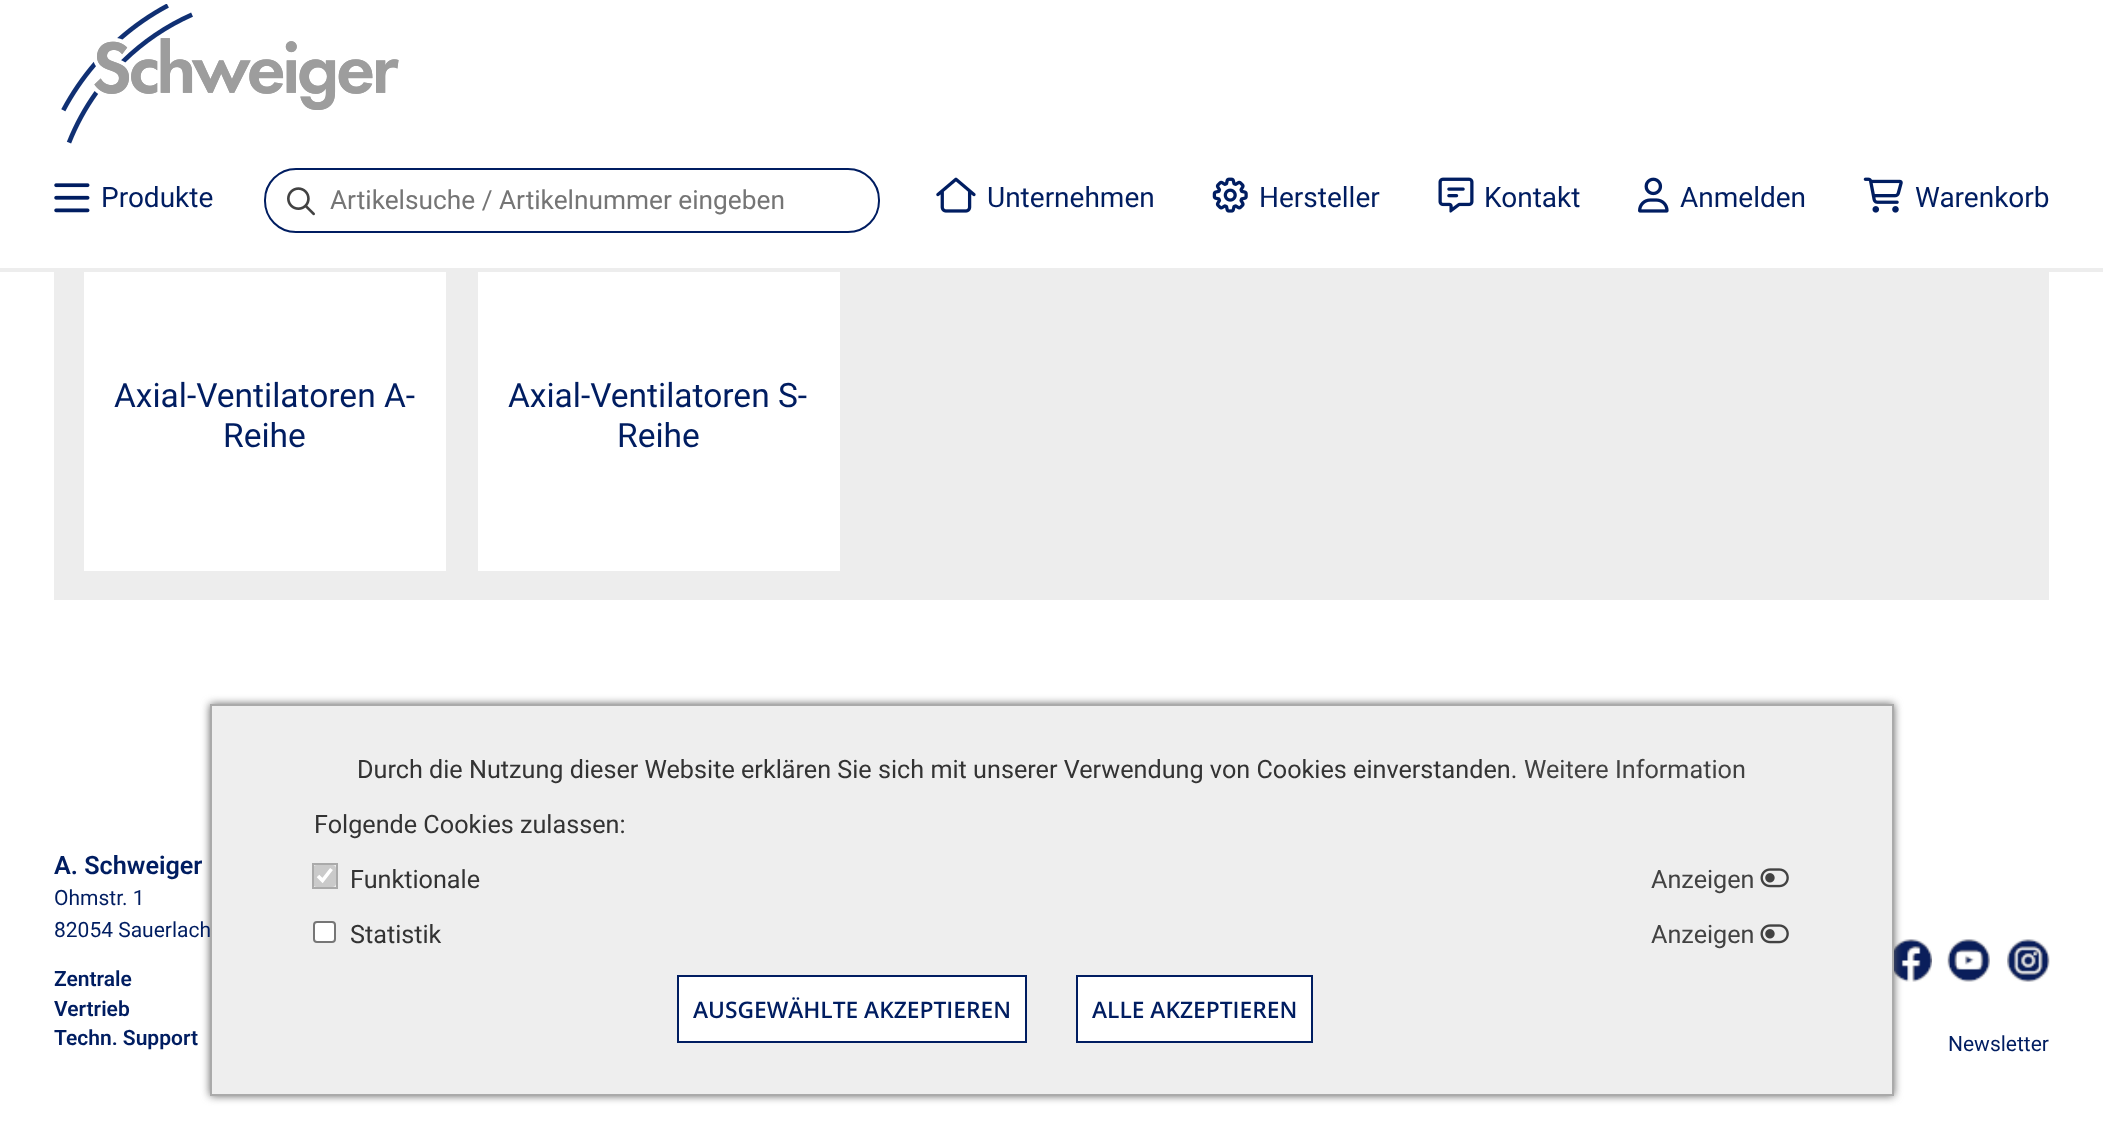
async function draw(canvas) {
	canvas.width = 2103;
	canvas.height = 1123;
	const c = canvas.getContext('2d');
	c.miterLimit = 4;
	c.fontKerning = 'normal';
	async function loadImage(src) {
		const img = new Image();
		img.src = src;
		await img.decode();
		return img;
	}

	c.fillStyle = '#fff';
	c.fillRect(0, 0, 2103, 1123);
	c.fillStyle = '#ededed';
	c.fillRect(54, 272, 1995, 328);
	c.strokeStyle = '#ededed';
	c.lineWidth = 2;
	c.strokeRect(83, 258, 364, 313);
	c.strokeRect(477, 258, 364, 313);
	c.fillStyle = '#fff';
	c.fillRect(82, 257, 760, 11);
	c.fillStyle = '#ededed';
	c.fillRect(0, 268, 2103, 4);
	c.drawImage(await loadImage('img1.png'), 61, 4, 338, 140);
	c.drawImage(await loadImage('img2.png'), 54, 183, 36, 30);
	c.font = '28px Roboto';
	c.fillStyle = '#001d61';
	c.fillText('Produkte', 101, 207);
	c.beginPath();
	c.roundRect(265, 169, 614, 63, 31);
	c.strokeStyle = '#001d61';
	c.stroke();
	c.drawImage(await loadImage('img3.png'), 287, 187, 28, 29);
	c.font = '26.25px Roboto';
	c.fillStyle = '#757575';
	c.fillText('Artikelsuche / Artikelnummer eingeben', 330, 209);
	c.drawImage(await loadImage('img4.png'), 936, 177, 40, 36);
	c.font = '28px Roboto';
	c.fillStyle = '#001d61';
	c.fillText('Unternehmen', 987, 207);
	c.drawImage(await loadImage('img5.png'), 1212, 177, 36, 36);
	c.fillText('Hersteller', 1259, 207);
	c.drawImage(await loadImage('img6.png'), 1438, 177, 36, 36);
	c.fillText('Kontakt', 1484, 207);
	c.drawImage(await loadImage('img7.png'), 1638, 177, 31, 36);
	c.fillText('Anmelden', 1680, 207);
	c.drawImage(await loadImage('img8.png'), 1863, 177, 40, 36);
	c.fillText('Warenkorb', 1915, 207);
	c.fillStyle = '#fff';
	c.fillRect(84, 272, 362, 299);
	c.font = '33.5px Roboto';
	c.fillStyle = '#001d61';
	c.fillText('Axial-Ventilatoren A-', 114, 407);
	c.fillText('Reihe', 223, 447);
	c.fillStyle = '#fff';
	c.fillRect(478, 272, 362, 299);
	c.fillStyle = '#001d61';
	c.fillText('Axial-Ventilatoren S-', 508, 407);
	c.fillText('Reihe', 617, 447);
	c.drawImage(await loadImage('img10.png'), 1894, 939, 38, 43);
	c.fillStyle = '#666';
	c.filter = 'blur(4.5px)';
	c.beginPath();
	c.rect(210, 704, 1684, 392);
	c.fill();
	c.filter = 'none';
	c.fillStyle = '#eee';
	c.beginPath();
	c.rect(211, 705, 1682, 390);
	c.fill();
	c.strokeStyle = '#aaa';
	c.stroke();
	c.font = '25.2px Roboto';
	c.fillStyle = '#333';
	c.fillText('Durch die Nutzung dieser Website erklären Sie sich mit unserer Verwendung von Cookies einverstanden.', 357, 778);
	c.fillStyle = '#424242';
	c.fillText('Weitere Information', 1524, 778);
	c.fillStyle = '#333';
	c.fillText('Folgende Cookies zulassen:', 314, 833);
	c.fillStyle = '#cacaca';
	c.beginPath();
	c.roundRect(313, 865, 23, 22, 4);
	c.fill();
	c.beginPath();
	c.moveTo(318, 876);
	c.lineTo(322.5, 880.5);
	c.lineTo(331.5, 869);
	c.strokeStyle = '#fff';
	c.lineWidth = 3.6;
	c.stroke();
	c.strokeStyle = '#aaa';
	c.lineWidth = 2;
	c.strokeRect(313, 864, 24, 24);
	c.fillStyle = '#333';
	c.fillText('Funktionale', 350, 888);
	c.fillStyle = '#424242';
	c.fillText('Anzeigen', 1651, 888);
	c.drawImage(await loadImage('img9.png'), 1760, 868, 29, 20);
	c.fillStyle = '#fff';
	c.beginPath();
	c.roundRect(314, 922, 21, 20, 3);
	c.fill();
	c.strokeStyle = '#767676';
	c.stroke();
	c.fillStyle = '#333';
	c.fillText('Statistik', 350, 943);
	c.fillStyle = '#424242';
	c.fillText('Anzeigen', 1651, 943);
	c.drawImage(await loadImage('img9.png'), 1760, 924, 29, 20);
	c.fillStyle = '#fff';
	c.beginPath();
	c.rect(678, 976, 348, 66);
	c.fill();
	c.strokeStyle = '#001d61';
	c.stroke();
	c.font = '600 22.75px Open Sans';
	c.fillStyle = '#001d61';
	c.fillText('AUSGEWÄHLTE AKZEPTIEREN', 693, 1018);
	c.fillStyle = '#fff';
	c.beginPath();
	c.rect(1077, 976, 235, 66);
	c.fill();
	c.stroke();
	c.fillStyle = '#001d61';
	c.fillText('ALLE AKZEPTIEREN', 1092, 1018);
	c.font = '600 25.2px Roboto';
	c.fillText('A. Schweiger', 54, 874);
	c.font = '21px Roboto';
	c.fillText('Ohmstr. 1', 54, 905);
	c.fillText('82054 Sauerlach', 54, 937);
	c.font = '600 21px Roboto';
	for (const [text, x, y] of [
		['Zentrale', 54, 986],
		['Vertrieb', 54, 1016],
		['Techn. Support', 54, 1045],
	]) {
		c.fillText(text, x, y);
	}
	c.drawImage(await loadImage('img11.png'), 1947, 939, 43, 43);
	c.drawImage(await loadImage('img12.png'), 2007, 939, 43, 43);
	c.font = '21px Roboto';
	c.fillText('Newsletter', 1948, 1051);
}

draw(document.querySelector('canvas'));
